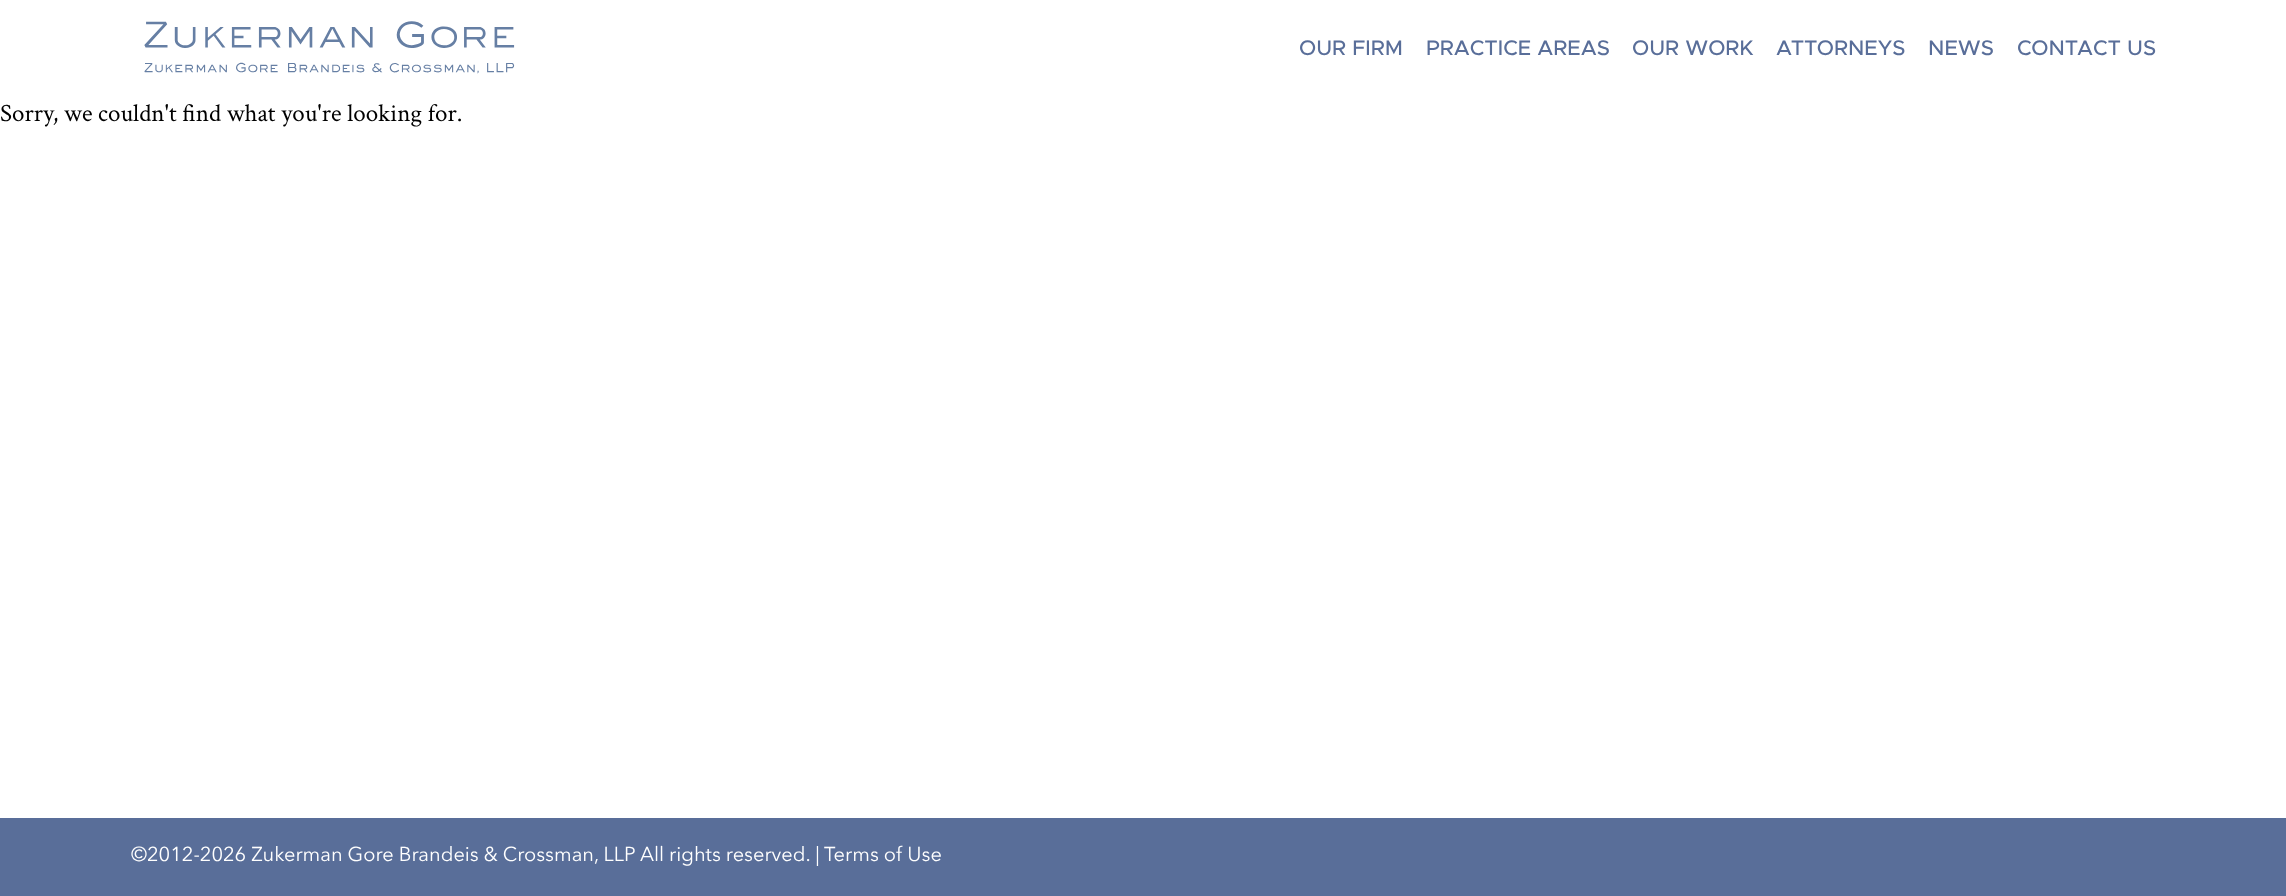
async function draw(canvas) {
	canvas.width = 2286;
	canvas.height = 896;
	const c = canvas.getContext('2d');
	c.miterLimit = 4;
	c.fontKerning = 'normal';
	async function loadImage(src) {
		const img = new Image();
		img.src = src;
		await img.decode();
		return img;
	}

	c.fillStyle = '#fff';
	c.fillRect(0, 0, 2286, 896);
	c.drawImage(await loadImage('img1.png'), 144, 21, 371, 53);
	c.font = '500 21.25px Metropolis';
	c.fillStyle = '#596e99';
	for (const [text, x, y] of [
		['OUR FIRM', 1299, 55],
		['PRACTICE AREAS', 1426, 55],
		['OUR WORK', 1632, 55],
		['ATTORNEYS', 1776, 55],
		['NEWS', 1928, 55],
		['CONTACT US', 2017, 55],
	]) {
		c.fillText(text, x, y);
	}
	c.font = '25px Crimson Text';
	c.fillStyle = '#000';
	c.fillText('Sorry, we couldn\'t find what you\'re looking for.', 0, 121);
	c.fillStyle = '#596e99';
	c.fillRect(0, 818, 2286, 78);
	c.font = '20px Avenir Next';
	c.fillStyle = '#fff';
	c.fillText('©2012-2026 Zukerman Gore Brandeis & Crossman, LLP', 131, 861);
	c.fillText('All rights reserved. | Terms of Use', 640, 861);
}

draw(document.querySelector('canvas'));
